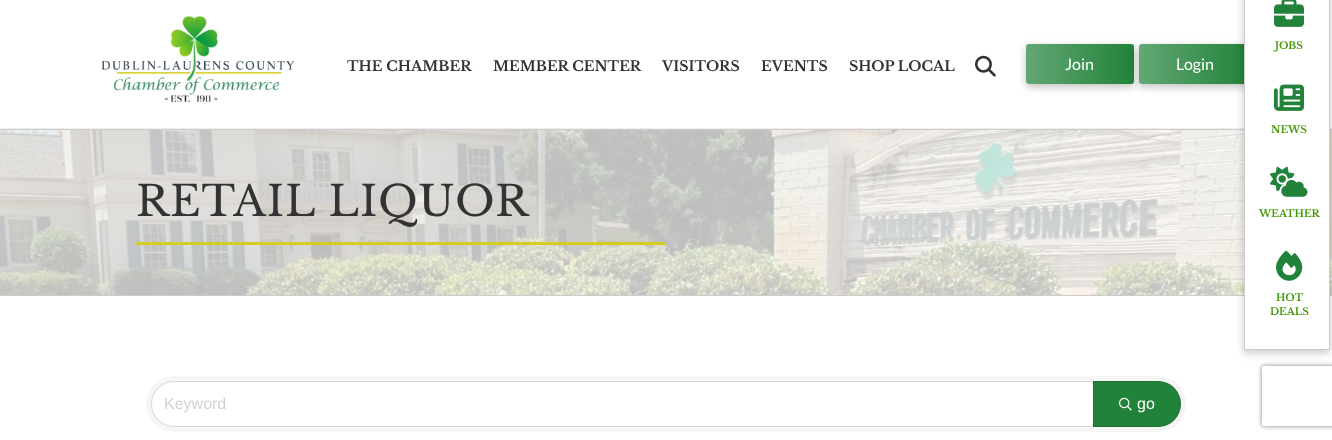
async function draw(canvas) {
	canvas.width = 1332;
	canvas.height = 440;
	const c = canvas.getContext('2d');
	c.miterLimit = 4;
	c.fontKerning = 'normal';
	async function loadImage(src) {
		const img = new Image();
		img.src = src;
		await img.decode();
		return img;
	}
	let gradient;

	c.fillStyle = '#fff';
	c.fillRect(0, 0, 1332, 440);
	c.fillStyle = '#efefef';
	c.fillRect(0, 128, 1332, 1);
	c.drawImage(await loadImage('img1.png'), 101, 16, 194, 87);
	c.font = 'bold 14px Libre Baskerville';
	c.fillStyle = '#333';
	for (const [text, x, y] of [
		['THE CHAMBER', 347, 71],
		['MEMBER CENTER', 493, 71],
		['VISITORS', 662, 71],
		['EVENTS', 761, 71],
		['SHOP LOCAL', 849, 71],
	]) {
		c.fillText(text, x, y);
	}
	c.drawImage(await loadImage('img2.png'), 975, 55, 21, 22);
	c.fillStyle = '#0000003d';
	c.filter = 'blur(4px)';
	c.beginPath();
	c.roundRect(1026, 47, 108, 40, 3);
	c.fill();
	c.filter = 'none';
	c.fillStyle = '#fff';
	c.beginPath();
	c.roundRect(1026, 44, 108, 40, 3);
	c.fill();
	gradient = c.createLinearGradient(1134, 64, 1026, 64);
	gradient.addColorStop(0, '#218239');
	gradient.addColorStop(1, '#218239b3');
	c.fillStyle = gradient;
	c.beginPath();
	c.roundRect(1026, 44, 108, 40, 3);
	c.fill();
	c.font = '16px Lato';
	c.fillStyle = '#fff';
	c.fillText('Join', 1065, 70);
	c.fillStyle = '#0000003d';
	c.filter = 'blur(4px)';
	c.beginPath();
	c.roundRect(1139, 47, 112, 40, 3);
	c.fill();
	c.filter = 'none';
	c.fillStyle = '#fff';
	c.beginPath();
	c.roundRect(1139, 44, 112, 40, 3);
	c.fill();
	gradient = c.createLinearGradient(1251, 64, 1139, 64);
	gradient.addColorStop(0, '#218239');
	gradient.addColorStop(1, '#218239b3');
	c.fillStyle = gradient;
	c.beginPath();
	c.roundRect(1139, 44, 112, 40, 3);
	c.fill();
	c.fillStyle = '#fff';
	c.fillText('Login', 1176, 70);
	c.drawImage(await loadImage('img7.png'), 0, 130, 1332, 165);
	for (const [x, y, w, h, color] of [
		[0, 129, 1332, 1, '#ccc'],
		[0, 295, 1332, 1, '#ccc'],
		[1245, 40, 84, 256, '#fff'],
	]) {
		c.fillStyle = color;
		c.fillRect(x, y, w, h);
	}
	c.save();
	c.beginPath();
	c.moveTo(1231, 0);
	c.lineTo(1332, 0);
	c.lineTo(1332, 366);
	c.lineTo(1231, 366);
	c.closePath();
	c.moveTo(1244, -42);
	c.lineTo(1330, -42);
	c.lineTo(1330, 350);
	c.lineTo(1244, 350);
	c.closePath();
	c.clip('evenodd');
	c.fillStyle = '#00000038';
	c.filter = 'blur(4px)';
	c.beginPath();
	c.rect(1244, -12, 86, 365);
	c.fill();
	c.filter = 'none';
	c.restore();
	c.strokeStyle = '#ccc';
	c.strokeRect(1244.5, -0.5, 85, 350);
	c.drawImage(await loadImage('img3.png'), 1274, 0, 30, 27);
	c.font = 'bold 10px Libre Baskerville';
	c.fillStyle = '#439906';
	c.fillText('JOBS', 1275, 49);
	c.drawImage(await loadImage('img4.png'), 1274, 84, 30, 27);
	c.fillText('NEWS', 1271, 133);
	c.drawImage(await loadImage('img5.png'), 1270, 166, 38, 31);
	c.fillText('WEATHER', 1259, 217);
	c.drawImage(await loadImage('img6.png'), 1276, 250, 27, 31);
	c.fillText('HOT', 1276, 301);
	c.fillText('DEALS', 1270, 315);
	c.letterSpacing = '1px';
	c.font = '42px Libre Baskerville';
	c.fillStyle = '#333';
	c.fillText('RETAIL LIQUOR', 136, 216);
	c.fillStyle = '#d4cd23';
	c.fillRect(136, 242, 530, 3);
	c.fillStyle = '#f5f5f5';
	c.beginPath();
	c.roundRect(146, 376, 1040, 56, 28);
	c.fill();
	c.fillStyle = '#fff';
	c.beginPath();
	c.roundRect(152, 382, 941, 44, [22, 3, 3, 22]);
	c.fill();
	c.beginPath();
	c.roundRect(151.5, 381.5, 942, 45, [22.5, 3.5, 3.5, 22.5]);
	c.strokeStyle = '#0000001f';
	c.stroke();
	c.letterSpacing = '0px';
	c.font = '16px Liberation Sans';
	c.fillStyle = '#d2d2d2';
	c.fillText('Keyword', 164, 409);
	c.fillStyle = '#218239';
	c.beginPath();
	c.roundRect(1093, 381, 88, 46, [0, 23, 23, 0]);
	c.fill();
	c.beginPath();
	c.roundRect(1093.5, 381.5, 87, 45, [0, 22.5, 22.5, 0]);
	c.stroke();
	c.drawImage(await loadImage('img8.png'), 1119, 397, 13, 14);
	c.fillStyle = '#fff';
	c.fillText('go', 1137, 409);
	c.save();
	c.beginPath();
	c.moveTo(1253, 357);
	c.lineTo(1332, 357);
	c.lineTo(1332, 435);
	c.lineTo(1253, 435);
	c.closePath();
	c.moveTo(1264, 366);
	c.lineTo(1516, 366);
	c.bezierCurveTo(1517, 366, 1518, 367, 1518, 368);
	c.lineTo(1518, 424);
	c.bezierCurveTo(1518, 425, 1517, 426, 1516, 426);
	c.lineTo(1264, 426);
	c.bezierCurveTo(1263, 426, 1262, 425, 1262, 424);
	c.lineTo(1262, 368);
	c.bezierCurveTo(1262, 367, 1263, 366, 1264, 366);
	c.closePath();
	c.clip('evenodd');
	c.fillStyle = '#808080';
	c.filter = 'blur(2.5px)';
	c.beginPath();
	c.roundRect(1262, 366, 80, 60, 2);
	c.fill();
	c.filter = 'none';
	c.restore();
}

draw(document.querySelector('canvas'));
